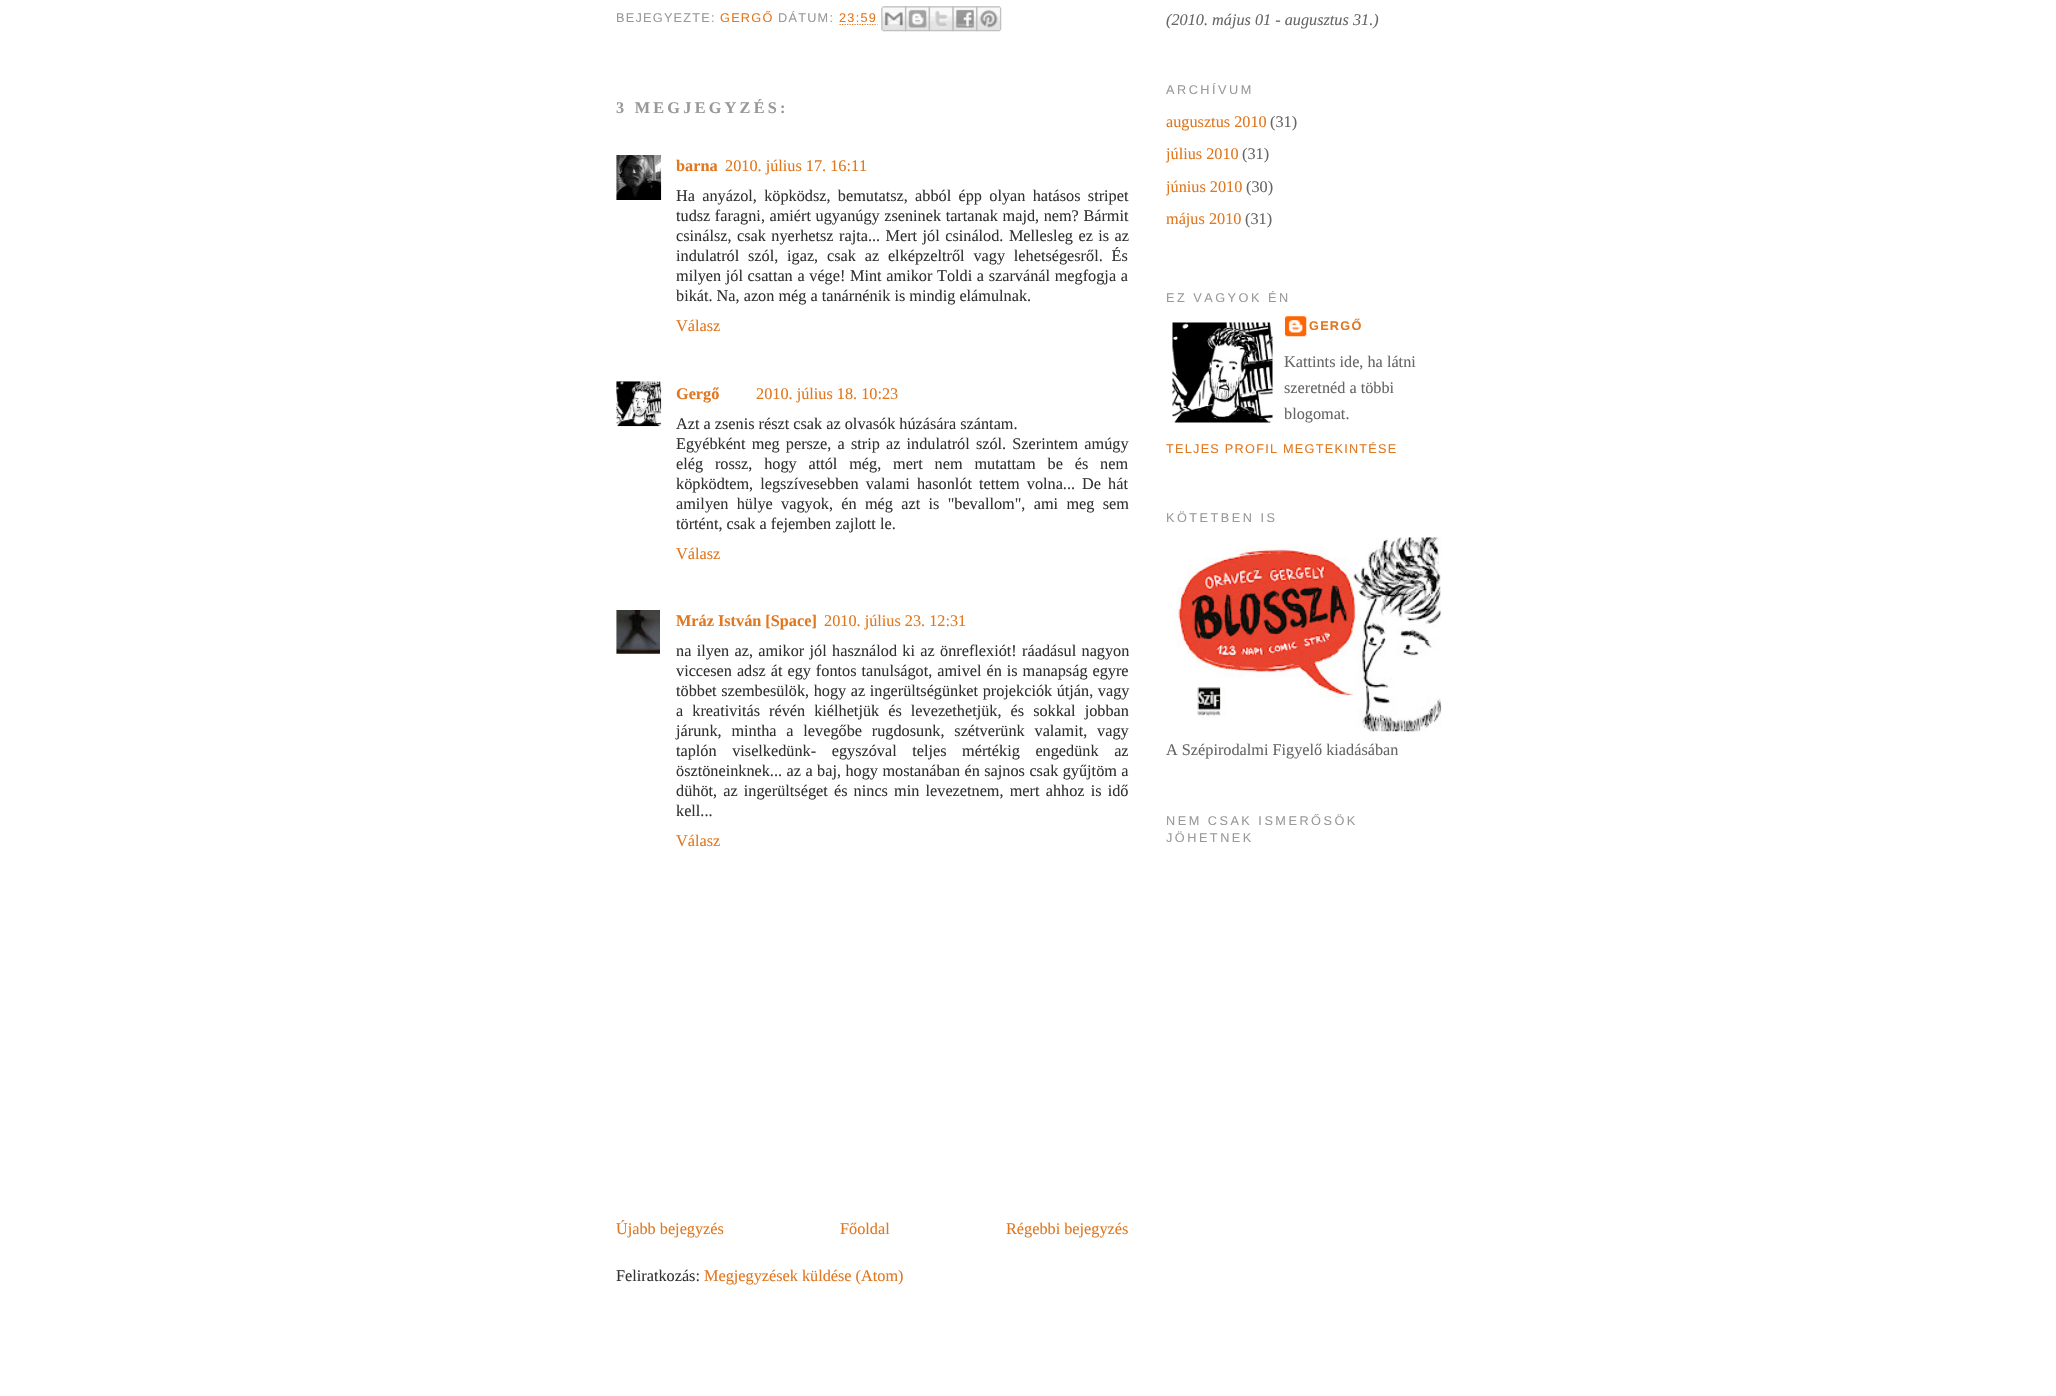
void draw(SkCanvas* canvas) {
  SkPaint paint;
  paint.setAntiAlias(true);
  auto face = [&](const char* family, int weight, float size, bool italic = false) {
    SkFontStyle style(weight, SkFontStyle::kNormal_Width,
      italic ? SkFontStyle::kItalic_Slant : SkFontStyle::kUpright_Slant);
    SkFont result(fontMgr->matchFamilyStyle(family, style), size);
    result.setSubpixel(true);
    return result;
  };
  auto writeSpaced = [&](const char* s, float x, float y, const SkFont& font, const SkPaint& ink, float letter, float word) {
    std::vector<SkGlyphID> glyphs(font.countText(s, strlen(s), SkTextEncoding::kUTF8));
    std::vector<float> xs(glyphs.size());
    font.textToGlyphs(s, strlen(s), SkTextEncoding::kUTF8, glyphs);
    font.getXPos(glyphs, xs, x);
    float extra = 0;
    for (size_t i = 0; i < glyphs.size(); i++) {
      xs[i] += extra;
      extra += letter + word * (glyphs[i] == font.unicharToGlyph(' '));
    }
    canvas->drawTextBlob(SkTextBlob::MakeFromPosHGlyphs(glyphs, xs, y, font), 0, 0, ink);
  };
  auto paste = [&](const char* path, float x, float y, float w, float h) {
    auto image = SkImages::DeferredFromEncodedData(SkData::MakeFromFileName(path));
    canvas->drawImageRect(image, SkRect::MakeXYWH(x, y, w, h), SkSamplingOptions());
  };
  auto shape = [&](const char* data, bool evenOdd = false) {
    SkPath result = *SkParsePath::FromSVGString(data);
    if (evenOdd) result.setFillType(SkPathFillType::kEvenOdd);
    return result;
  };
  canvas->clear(0xffffffff);
  paint.setStroke(true);
  paint.setStrokeWidth(1.2f);
  paint.setColor(0xffe1771e);
  paint.setPathEffect(SkDashPathEffect::Make({{1.25f, 1.25f}}, 0));
  canvas->drawPath(shape("M839.5 24.5H877.5"), paint);
  paint.setPathEffect(nullptr);
  paste("img/1.png", 881, 6, 26, 26);
  paste("img/2.png", 905, 6, 25, 26);
  paste("img/3.png", 928, 6, 26, 26);
  paste("img/4.png", 952, 6, 26, 26);
  paste("img/5.png", 976, 6, 26, 26);
  paste("img/6.png", 616, 155, 46, 45);
  paste("img/7.png", 616, 381, 46, 46);
  paste("img/8.png", 616, 610, 44, 44);
  paste("img/9.png", 1172, 322, 101, 101);
  paste("img/10.png", 1285, 316, 22, 21);
  paste("img/11.png", 1176, 537, 266, 195);
  auto f0 = face("Liberation Sans", 400, 12.7f);
  paint.setStroke(false);
  paint.setColor(0xff999999);
  writeSpaced("BEJEGYEZTE:", 616, 22, f0, paint, 1.25f, 0);
  paint.setColor(0xffe1771e);
  writeSpaced("GERGŐ", 720, 22, f0, paint, 1.25f, 0);
  paint.setColor(0xff999999);
  writeSpaced("DÁTUM:", 778, 22, f0, paint, 1.25f, 0);
  paint.setColor(0xffe1771e);
  writeSpaced("23:59", 839, 22, f0, paint, 1.25f, 0);
  auto f1 = face("Liberation Serif", 700, 16.25f);
  paint.setColor(0xff999999);
  writeSpaced("3 MEGJEGYZÉS:", 616, 113, f1, paint, 3.25f, 0);
  paint.setColor(0xffe1771e);
  canvas->drawString("barna", 676, 171, f1, paint);
  auto f2 = face("Liberation Serif", 400, 16.25f);
  canvas->drawString("2010. július 17. 16:11", 725, 171, f2, paint);
  paint.setColor(0xff333333);
  writeSpaced("Ha anyázol, köpködsz, bemutatsz, abból épp olyan hatásos stripet", 676, 201, f2, paint, 0, 3.25f);
  writeSpaced("tudsz faragni, amiért ugyanúgy zseninek tartanak majd, nem? Bármit", 676, 221, f2, paint, 0, 0.5f);
  writeSpaced("csinálsz, csak nyerhetsz rajta... Mert jól csinálod. Mellesleg ez is az", 676, 241, f2, paint, 0, 1.4f);
  writeSpaced("indulatról szól, igaz, csak az elképzeltről vagy lehetségesről. És", 676, 261, f2, paint, 0, 4.75f);
  writeSpaced("milyen jól csattan a vége! Mint amikor Toldi a szarvánál megfogja a", 676, 281, f2, paint, 0, 0.6f);
  canvas->drawString("bikát. Na, azon még a tanárnénik is mindig elámulnak.", 676, 301, f2, paint);
  paint.setColor(0xffe1771e);
  canvas->drawString("Válasz", 676, 331, f2, paint);
  canvas->drawString("Gergő", 676, 399, f1, paint);
  canvas->drawString("2010. július 18. 10:23", 756, 399, f2, paint);
  paint.setColor(0xff333333);
  canvas->drawString("Azt a zsenis részt csak az olvasók húzására szántam.", 676, 429, f2, paint);
  writeSpaced("Egyébként meg persze, a strip az indulatról szól. Szerintem amúgy", 676, 449, f2, paint, 0, 2.1f);
  writeSpaced("elég rossz, hogy attól még, mert nem mutattam be és nem", 676, 469, f2, paint, 0, 7.75f);
  writeSpaced("köpködtem, legszívesebben valami hasonlót tettem volna... De hát", 676, 489, f2, paint, 0, 3);
  writeSpaced("amilyen hülye vagyok, én még azt is \"bevallom\", ami meg sem", 676, 509, f2, paint, 0, 4.25f);
  canvas->drawString("történt, csak a fejemben zajlott le.", 676, 529, f2, paint);
  paint.setColor(0xffe1771e);
  canvas->drawString("Válasz", 676, 559, f2, paint);
  canvas->drawString("Mráz István [Space]", 676, 626, f1, paint);
  canvas->drawString("2010. július 23. 12:31", 824, 626, f2, paint);
  paint.setColor(0xff333333);
  writeSpaced("na ilyen az, amikor jól használod ki az önreflexiót! ráadásul nagyon", 676, 656, f2, paint, 0, 1.25f);
  writeSpaced("viccesen adsz át egy fontos tanulságot, amivel én is manapság egyre", 676, 676, f2, paint, 0, 0.9f);
  writeSpaced("többet szembesülök, hogy az ingerültségünket projekciók útján, vagy", 676, 696, f2, paint, 0, 0.5f);
  writeSpaced("a kreativitás révén kiélhetjük és levezethetjük, és sokkal jobban", 676, 716, f2, paint, 0, 5);
  writeSpaced("járunk, mintha a levegőbe rugdosunk, szétverünk valamit, vagy", 676, 736, f2, paint, 0, 5.75f);
  writeSpaced("taplón viselkedünk- egyszóval teljes mértékig engedünk az", 676, 756, f2, paint, 0, 11.5f);
  writeSpaced("ösztöneinknek... az a baj, hogy mostanában én sajnos csak gyűjtöm a", 676, 776, f2, paint, 0, 0.4f);
  writeSpaced("dühöt, az ingerültséget és nincs min levezetnem, mert ahhoz is idő", 676, 796, f2, paint, 0, 2.1f);
  canvas->drawString("kell...", 676, 816, f2, paint);
  paint.setColor(0xffe1771e);
  {
    const struct { const char* s; float x, y; } items[] = {
      {"Válasz", 676, 846},
      {"Újabb bejegyzés", 616, 1234},
      {"Főoldal", 840, 1234},
      {"Régebbi bejegyzés", 1006, 1234},
    };
    for (auto [s, x, y] : items) {
      canvas->drawString(s, x, y, f2, paint);
    }
  }
  paint.setColor(0xff333333);
  canvas->drawString("Feliratkozás:", 616, 1281, f2, paint);
  paint.setColor(0xffe1771e);
  canvas->drawString("Megjegyzések küldése (Atom)", 704, 1281, f2, paint);
  auto f3 = face("Liberation Serif", 400, 16.25f, true);
  paint.setColor(0xff666666);
  canvas->drawString("(2010. május 01 - augusztus 31.)", 1166, 25, f3, paint);
  paint.setColor(0xff999999);
  writeSpaced("ARCHÍVUM", 1166, 94, f0, paint, 2.5f, 0);
  paint.setColor(0xffe1771e);
  canvas->drawString("augusztus 2010", 1166, 127, f2, paint);
  paint.setColor(0xff666666);
  canvas->drawString("(31)", 1270, 127, f2, paint);
  canvas->save();
  canvas->clipRect(SkRect::MakeXYWH(1166, 0, 275, 1101));
  paint.setColor(0xffe1771e);
  canvas->drawString("július 2010", 1166, 159, f2, paint);
  canvas->restore();
  paint.setColor(0xff666666);
  canvas->drawString("(31)", 1242, 159, f2, paint);
  canvas->save();
  canvas->clipRect(SkRect::MakeXYWH(1166, 0, 275, 1101));
  paint.setColor(0xffe1771e);
  canvas->drawString("június 2010", 1166, 192, f2, paint);
  canvas->restore();
  paint.setColor(0xff666666);
  canvas->drawString("(30)", 1246, 192, f2, paint);
  paint.setColor(0xffe1771e);
  canvas->drawString("május 2010", 1166, 224, f2, paint);
  paint.setColor(0xff666666);
  canvas->drawString("(31)", 1245, 224, f2, paint);
  paint.setColor(0xff999999);
  writeSpaced("EZ VAGYOK ÉN", 1166, 302, f0, paint, 2.5f, 0);
  auto f4 = face("Liberation Sans", 700, 12.7f);
  paint.setColor(0xffe1771e);
  writeSpaced("GERGŐ", 1309, 330, f4, paint, 1.25f, 0);
  paint.setColor(0xff666666);
  {
    const struct { const char* s; float x, y; } items[] = {
      {"Kattints ide, ha látni", 1284, 367},
      {"szeretnéd a többi", 1284, 393},
      {"blogomat.", 1284, 419},
    };
    for (auto [s, x, y] : items) {
      canvas->drawString(s, x, y, f2, paint);
    }
  }
  paint.setColor(0xffe1771e);
  writeSpaced("TELJES PROFIL MEGTEKINTÉSE", 1166, 453, f0, paint, 1.25f, 0);
  paint.setColor(0xff999999);
  writeSpaced("KÖTETBEN IS", 1166, 522, f0, paint, 2.5f, 0);
  paint.setColor(0xff666666);
  canvas->drawString("A Szépirodalmi Figyelő kiadásában", 1166, 755, f2, paint);
  paint.setColor(0xff999999);
  writeSpaced("NEM CSAK ISMERŐSÖK", 1166, 825, f0, paint, 2.5f, 0);
  writeSpaced("JÖHETNEK", 1166, 842, f0, paint, 2.5f, 0);
}
